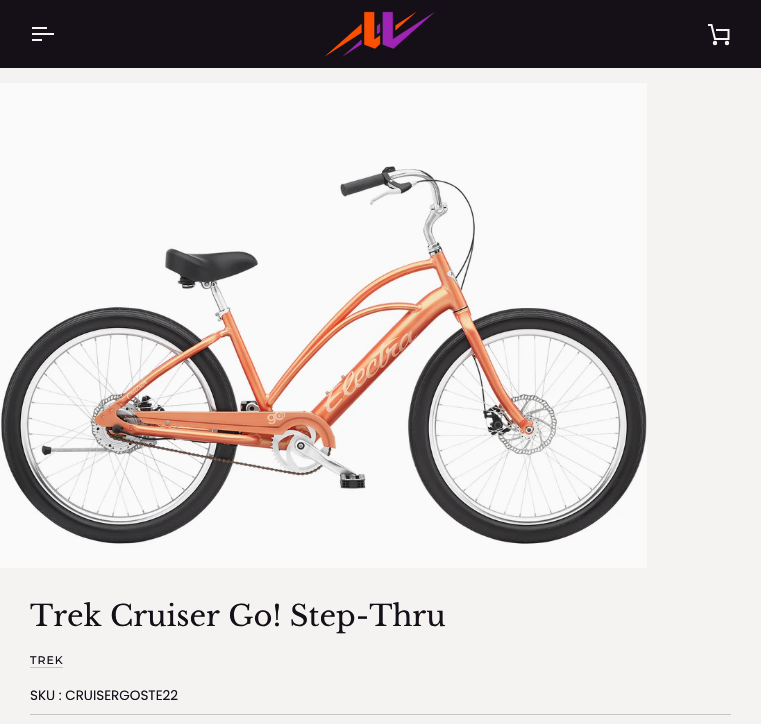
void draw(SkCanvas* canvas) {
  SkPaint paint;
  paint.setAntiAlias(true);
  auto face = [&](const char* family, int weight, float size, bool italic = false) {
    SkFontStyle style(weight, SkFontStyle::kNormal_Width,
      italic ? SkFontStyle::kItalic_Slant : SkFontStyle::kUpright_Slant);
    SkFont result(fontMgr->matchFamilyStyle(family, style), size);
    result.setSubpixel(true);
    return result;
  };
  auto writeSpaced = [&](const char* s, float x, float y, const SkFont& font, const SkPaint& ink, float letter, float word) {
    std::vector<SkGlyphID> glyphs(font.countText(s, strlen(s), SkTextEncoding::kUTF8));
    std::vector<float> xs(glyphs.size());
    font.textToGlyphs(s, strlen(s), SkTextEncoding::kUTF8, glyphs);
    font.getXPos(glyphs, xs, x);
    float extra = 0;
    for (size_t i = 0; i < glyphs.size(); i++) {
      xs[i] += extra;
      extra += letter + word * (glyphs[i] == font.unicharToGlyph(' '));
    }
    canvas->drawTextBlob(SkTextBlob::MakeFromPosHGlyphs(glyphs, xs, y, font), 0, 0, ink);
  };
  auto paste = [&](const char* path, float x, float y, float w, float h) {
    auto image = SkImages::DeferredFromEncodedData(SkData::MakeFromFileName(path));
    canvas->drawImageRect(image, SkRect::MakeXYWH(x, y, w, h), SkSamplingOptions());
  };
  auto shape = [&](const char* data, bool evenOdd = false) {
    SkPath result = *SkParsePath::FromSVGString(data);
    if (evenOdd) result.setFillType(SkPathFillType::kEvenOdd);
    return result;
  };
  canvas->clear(0xfff4f3f2);
  paint.setColor(0xff150f17);
  canvas->drawRect(SkRect::MakeXYWH(0, 0, 761, 68), paint);
  paint.setStroke(true);
  paint.setStrokeWidth(2);
  paint.setStrokeCap(SkPaint::kSquare_Cap);
  paint.setColor(0xfff7f5f4);
  canvas->drawPath(shape("M46 28H33M53 34H33M41 40H33"), paint);
  paste("img/1.png", 324, 11, 111, 46);
  paint.setStrokeCap(SkPaint::kButt_Cap);
  canvas->drawPath(shape("M708 25H711.5L715 39H728.5V30H716"), paint);
  canvas->drawCircle(715, 43, 1.2f, paint);
  canvas->drawCircle(727, 43, 1.2f, paint);
  paste("img/2.png", 0, 83, 647, 485);
  paint.setStroke(false);
  paint.setColor(0xffc7c5c6);
  canvas->drawRect(SkRect::MakeXYWH(30, 667, 33, 1), paint);
  canvas->drawRect(SkRect::MakeXYWH(30, 714, 701, 1), paint);
  auto f0 = face("Libre Baskerville", 400, 29);
  paint.setColor(0xff150f17);
  canvas->drawString("Trek Cruiser Go! Step-Thru", 30, 626, f0, paint);
  auto f1 = face("Montserrat", 500, 11);
  writeSpaced("TREK", 30, 664, f1, paint, 1, 0);
  auto f2 = face("Poppins", 400, 13.5f);
  canvas->drawString("SKU : CRUISERGOSTE22", 30, 700, f2, paint);
}
